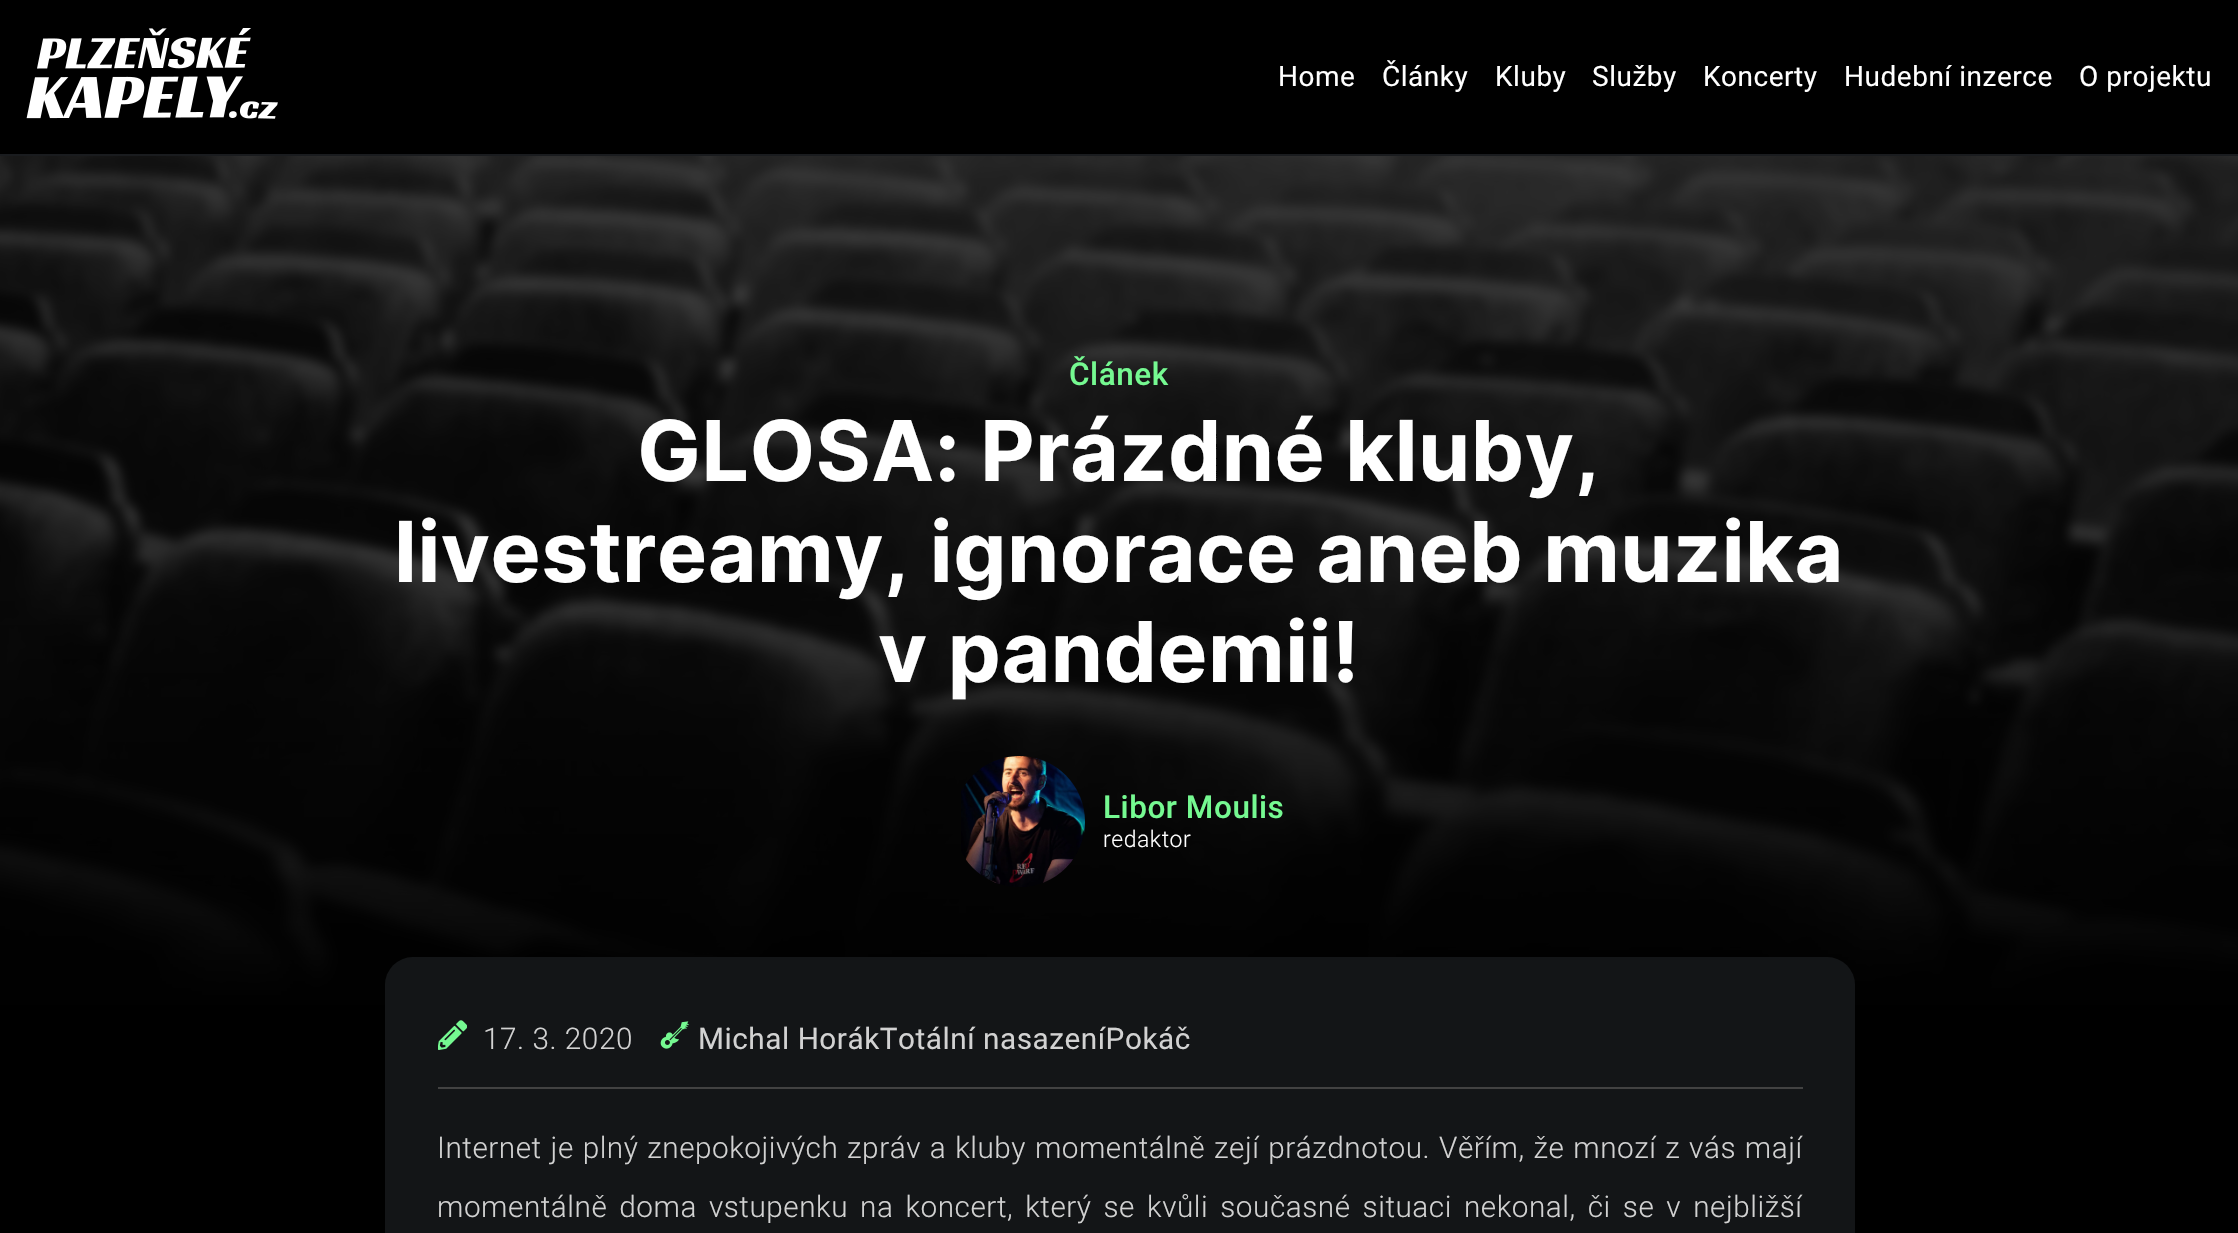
void draw(SkCanvas* canvas) {
  SkPaint paint;
  paint.setAntiAlias(true);
  auto face = [&](const char* family, int weight, float size, bool italic = false) {
    SkFontStyle style(weight, SkFontStyle::kNormal_Width,
      italic ? SkFontStyle::kItalic_Slant : SkFontStyle::kUpright_Slant);
    SkFont result(fontMgr->matchFamilyStyle(family, style), size);
    result.setSubpixel(true);
    return result;
  };
  auto writeSpaced = [&](const char* s, float x, float y, const SkFont& font, const SkPaint& ink, float letter, float word) {
    std::vector<SkGlyphID> glyphs(font.countText(s, strlen(s), SkTextEncoding::kUTF8));
    std::vector<float> xs(glyphs.size());
    font.textToGlyphs(s, strlen(s), SkTextEncoding::kUTF8, glyphs);
    font.getXPos(glyphs, xs, x);
    float extra = 0;
    for (size_t i = 0; i < glyphs.size(); i++) {
      xs[i] += extra;
      extra += letter + word * (glyphs[i] == font.unicharToGlyph(' '));
    }
    canvas->drawTextBlob(SkTextBlob::MakeFromPosHGlyphs(glyphs, xs, y, font), 0, 0, ink);
  };
  auto paste = [&](const char* path, float x, float y, float w, float h) {
    auto image = SkImages::DeferredFromEncodedData(SkData::MakeFromFileName(path));
    canvas->drawImageRect(image, SkRect::MakeXYWH(x, y, w, h), SkSamplingOptions());
  };
  canvas->clear(0xff000000);
  paint.setColor(0xff1a1c1f);
  canvas->drawRect(SkRect::MakeXYWH(0, 154, 2238, 2), paint);
  paste("img/1.png", 26, 28, 252, 91);
  paste("img/2.png", 0, 156, 2238, 849);
  {
    const SkColor colors[] = {0x80000000, 0xff000000};
    const float stops[] = {0.57f, 1};
    const SkPoint ends[] = {{1119, 0}, {1119, 1010}};
    paint.setShader(SkGradientShader::MakeLinear(ends, colors, stops, 2, SkTileMode::kClamp));
    paint.setAlpha(255);
  }
  canvas->drawRect(SkRect::MakeXYWH(0, 156, 2238, 849), paint);
  paste("img/3.png", 961, 756, 124, 131);
  paint.setShader(nullptr);
  paint.setColor(0xff131517);
  canvas->drawRoundRect(SkRect::MakeXYWH(385, 957, 1470, 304), 28, 28, paint);
  paint.setColor(0xff424242);
  canvas->drawRect(SkRect::MakeXYWH(438, 1087, 1365, 2), paint);
  paste("img/4.png", 438, 1020, 29, 30);
  paste("img/5.png", 660, 1021, 29, 28);
  auto f0 = face("Roboto", 400, 28);
  paint.setColor(0xffffffff);
  {
    const struct { const char* s; float x, y; } items[] = {
      {"Home", 1278, 86},
      {"Články", 1382, 86},
      {"Kluby", 1495, 86},
      {"Služby", 1592, 86},
      {"Koncerty", 1703, 86},
      {"Hudební inzerce", 1844, 86},
      {"O projektu", 2079, 86},
    };
    for (auto [s, x, y] : items) {
      writeSpaced(s, x, y, f0, paint, 0.53f, 0);
    }
  }
  auto f1 = face("Roboto", 500, 31.5f);
  paint.setColor(0xff75f991);
  writeSpaced("Článek", 1069, 385, f1, paint, 0.53f, 0);
  auto f2 = face("Inter", 700, 84);
  paint.setColor(0xffffffff);
  {
    const struct { const char* s; float x, y; } items[] = {
      {"GLOSA: Prázdné kluby,", 637, 481},
      {"livestreamy, ignorace aneb muzika", 394, 582},
      {"v pandemii!", 878, 682},
    };
    for (auto [s, x, y] : items) {
      writeSpaced(s, x, y, f2, paint, 0.53f, 0);
    }
  }
  paint.setColor(0xff75f991);
  writeSpaced("Libor Moulis", 1103, 818, f1, paint, 0.53f, 0);
  auto f3 = face("Roboto", 300, 23);
  paint.setColor(0xffffffff);
  writeSpaced("redaktor", 1103, 847, f3, paint, 0.53f, 0);
  auto f4 = face("Roboto", 300, 29.75f);
  paint.setColor(0xffd2d2d2);
  writeSpaced("17. 3. 2020", 483, 1049, f4, paint, 0.53f, 0);
  auto f5 = face("Roboto", 400, 29.75f);
  writeSpaced("Michal HorákTotální nasazeníPokáč", 698, 1049, f5, paint, 0.53f, 0);
  writeSpaced("Internet je plný znepokojivých zpráv a kluby momentálně zejí prázdnotou. Věřím, že mnozí z vás mají", 437, 1158, f4, paint, 0.53f, 1.1f);
  writeSpaced("momentálně doma vstupenku na koncert, který se kvůli současné situaci nekonal, či se v nejbližší", 437, 1217, f4, paint, 0.53f, 4.25f);
}
